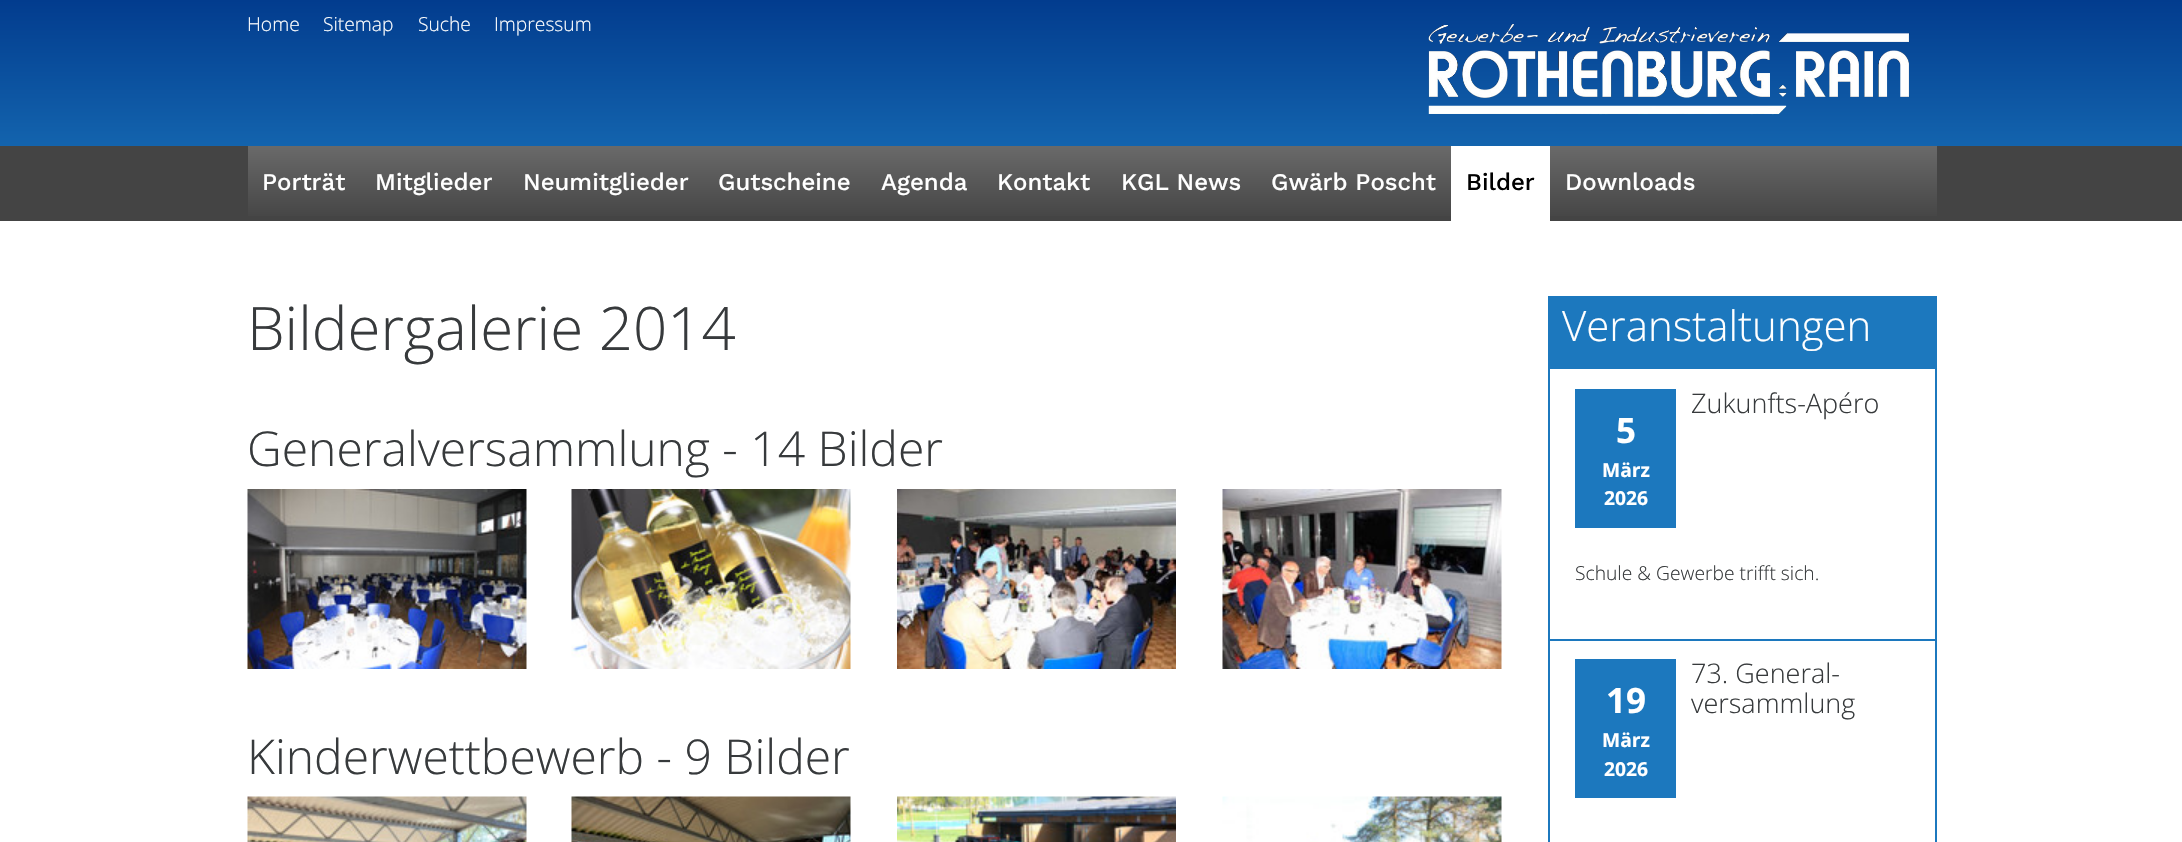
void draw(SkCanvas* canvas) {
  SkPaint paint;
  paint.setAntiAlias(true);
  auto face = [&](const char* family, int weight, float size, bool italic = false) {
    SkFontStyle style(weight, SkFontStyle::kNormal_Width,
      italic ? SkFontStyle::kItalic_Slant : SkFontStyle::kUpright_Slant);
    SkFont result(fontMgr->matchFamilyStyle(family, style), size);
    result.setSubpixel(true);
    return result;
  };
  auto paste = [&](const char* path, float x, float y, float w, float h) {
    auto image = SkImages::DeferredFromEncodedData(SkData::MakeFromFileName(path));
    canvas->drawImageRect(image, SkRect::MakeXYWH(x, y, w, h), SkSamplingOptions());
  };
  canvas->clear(0xffffffff);
  {
    const SkColor colors[] = {0xff023c8e, 0xff1c78be};
    const float stops[] = {0, 1};
    const SkPoint ends[] = {{1091, 0}, {1091, 221}};
    paint.setShader(SkGradientShader::MakeLinear(ends, colors, stops, 2, SkTileMode::kClamp));
    paint.setAlpha(255);
  }
  canvas->drawRect(SkRect::MakeXYWH(0, 0, 2182, 146), paint);
  paste("img/1.png", 1428, 24, 482, 91);
  paint.setShader(nullptr);
  paint.setColor(0xff444444);
  canvas->drawRect(SkRect::MakeXYWH(0, 146, 2182, 75), paint);
  {
    const SkColor colors[] = {0xff6a6a6a, 0xff444444};
    const float stops[] = {0, 1};
    const SkPoint ends[] = {{1092, 145}, {1092, 221}};
    paint.setShader(SkGradientShader::MakeLinear(ends, colors, stops, 2, SkTileMode::kClamp));
    paint.setAlpha(255);
  }
  canvas->drawRect(SkRect::MakeXYWH(248, 146, 1689, 70), paint);
  paint.setShader(nullptr);
  paint.setColor(0xffffffff);
  canvas->drawRect(SkRect::MakeXYWH(1451, 146, 99, 75), paint);
  paste("img/2.png", 247, 489, 280, 180);
  paste("img/3.png", 571, 489, 280, 180);
  paste("img/4.png", 897, 489, 279, 180);
  paste("img/5.png", 1222, 489, 280, 180);
  paste("img/6.png", 247, 796, 280, 46);
  paste("img/7.png", 571, 796, 280, 46);
  paste("img/8.png", 897, 796, 279, 46);
  paste("img/9.png", 1222, 796, 280, 46);
  {
    const struct { float x, y, w, h; SkColor color; } items[] = {
      {1548, 296, 389, 73, 0xff1c78be},
      {1935, 368, 2, 474, 0xff1c78be},
      {1548, 368, 2, 474, 0xff1c78be},
      {1550, 639, 385, 2, 0xff1c78be},
      {1575, 389, 101, 139, 0xff1c78be},
      {1575, 659, 101, 139, 0xff1c78be},
    };
    for (auto [x, y, w, h, color] : items) {
      paint.setColor(color);
      canvas->drawRect(SkRect::MakeXYWH(x, y, w, h), paint);
    }
  }
  auto f0 = face("Open Sans", 300, 19.25f);
  paint.setColor(0xffffffff);
  {
    const struct { const char* s; float x, y; } items[] = {
      {"Home", 247, 31},
      {"Sitemap", 323, 31},
      {"Suche", 418, 31},
      {"Impressum", 494, 31},
    };
    for (auto [s, x, y] : items) {
      canvas->drawString(s, x, y, f0, paint);
    }
  }
  auto f1 = face("Work Sans", 500, 24);
  {
    const struct { const char* s; float x, y; } items[] = {
      {"Porträt", 262, 190},
      {"Mitglieder", 375, 190},
      {"Neumitglieder", 523, 190},
      {"Gutscheine", 718, 190},
      {"Agenda", 881, 190},
      {"Kontakt", 997, 190},
      {"KGL News", 1121, 190},
      {"Gwärb Poscht", 1271, 190},
    };
    for (auto [s, x, y] : items) {
      canvas->drawString(s, x, y, f1, paint);
    }
  }
  paint.setColor(0xff000000);
  canvas->drawString("Bilder", 1466, 190, f1, paint);
  paint.setColor(0xffffffff);
  canvas->drawString("Downloads", 1565, 190, f1, paint);
  auto f2 = face("Open Sans", 300, 60);
  paint.setColor(0xff373a3c);
  canvas->drawString("Bildergalerie 2014", 247, 350, f2, paint);
  auto f3 = face("Open Sans", 300, 48);
  canvas->drawString("Generalversammlung - 14 Bilder", 247, 466, f3, paint);
  canvas->drawString("Kinderwettbewerb - 9 Bilder", 247, 774, f3, paint);
  auto f4 = face("Open Sans", 300, 42);
  paint.setColor(0xffffffff);
  canvas->drawString("Veranstaltungen", 1562, 341, f4, paint);
  auto f5 = face("Open Sans", 300, 27);
  paint.setColor(0xff373a3c);
  canvas->drawString("Zukunfts-Apéro", 1691, 413, f5, paint);
  auto f6 = face("Open Sans", 700, 35);
  paint.setColor(0xffffffff);
  canvas->drawString("5", 1616, 443, f6, paint);
  auto f7 = face("Open Sans", 700, 19.25f);
  canvas->drawString("März", 1602, 477, f7, paint);
  canvas->drawString("2026", 1604, 505, f7, paint);
  paint.setColor(0xff373a3c);
  canvas->drawString("Schule & Gewerbe trifft sich.", 1575, 580, f0, paint);
  paint.setColor(0xffffffff);
  canvas->drawString("19", 1606, 713, f6, paint);
  canvas->drawString("März", 1602, 747, f7, paint);
  canvas->drawString("2026", 1604, 776, f7, paint);
  paint.setColor(0xff373a3c);
  canvas->drawString("73. General-", 1691, 683, f5, paint);
  canvas->drawString("versammlung", 1691, 713, f5, paint);
}
